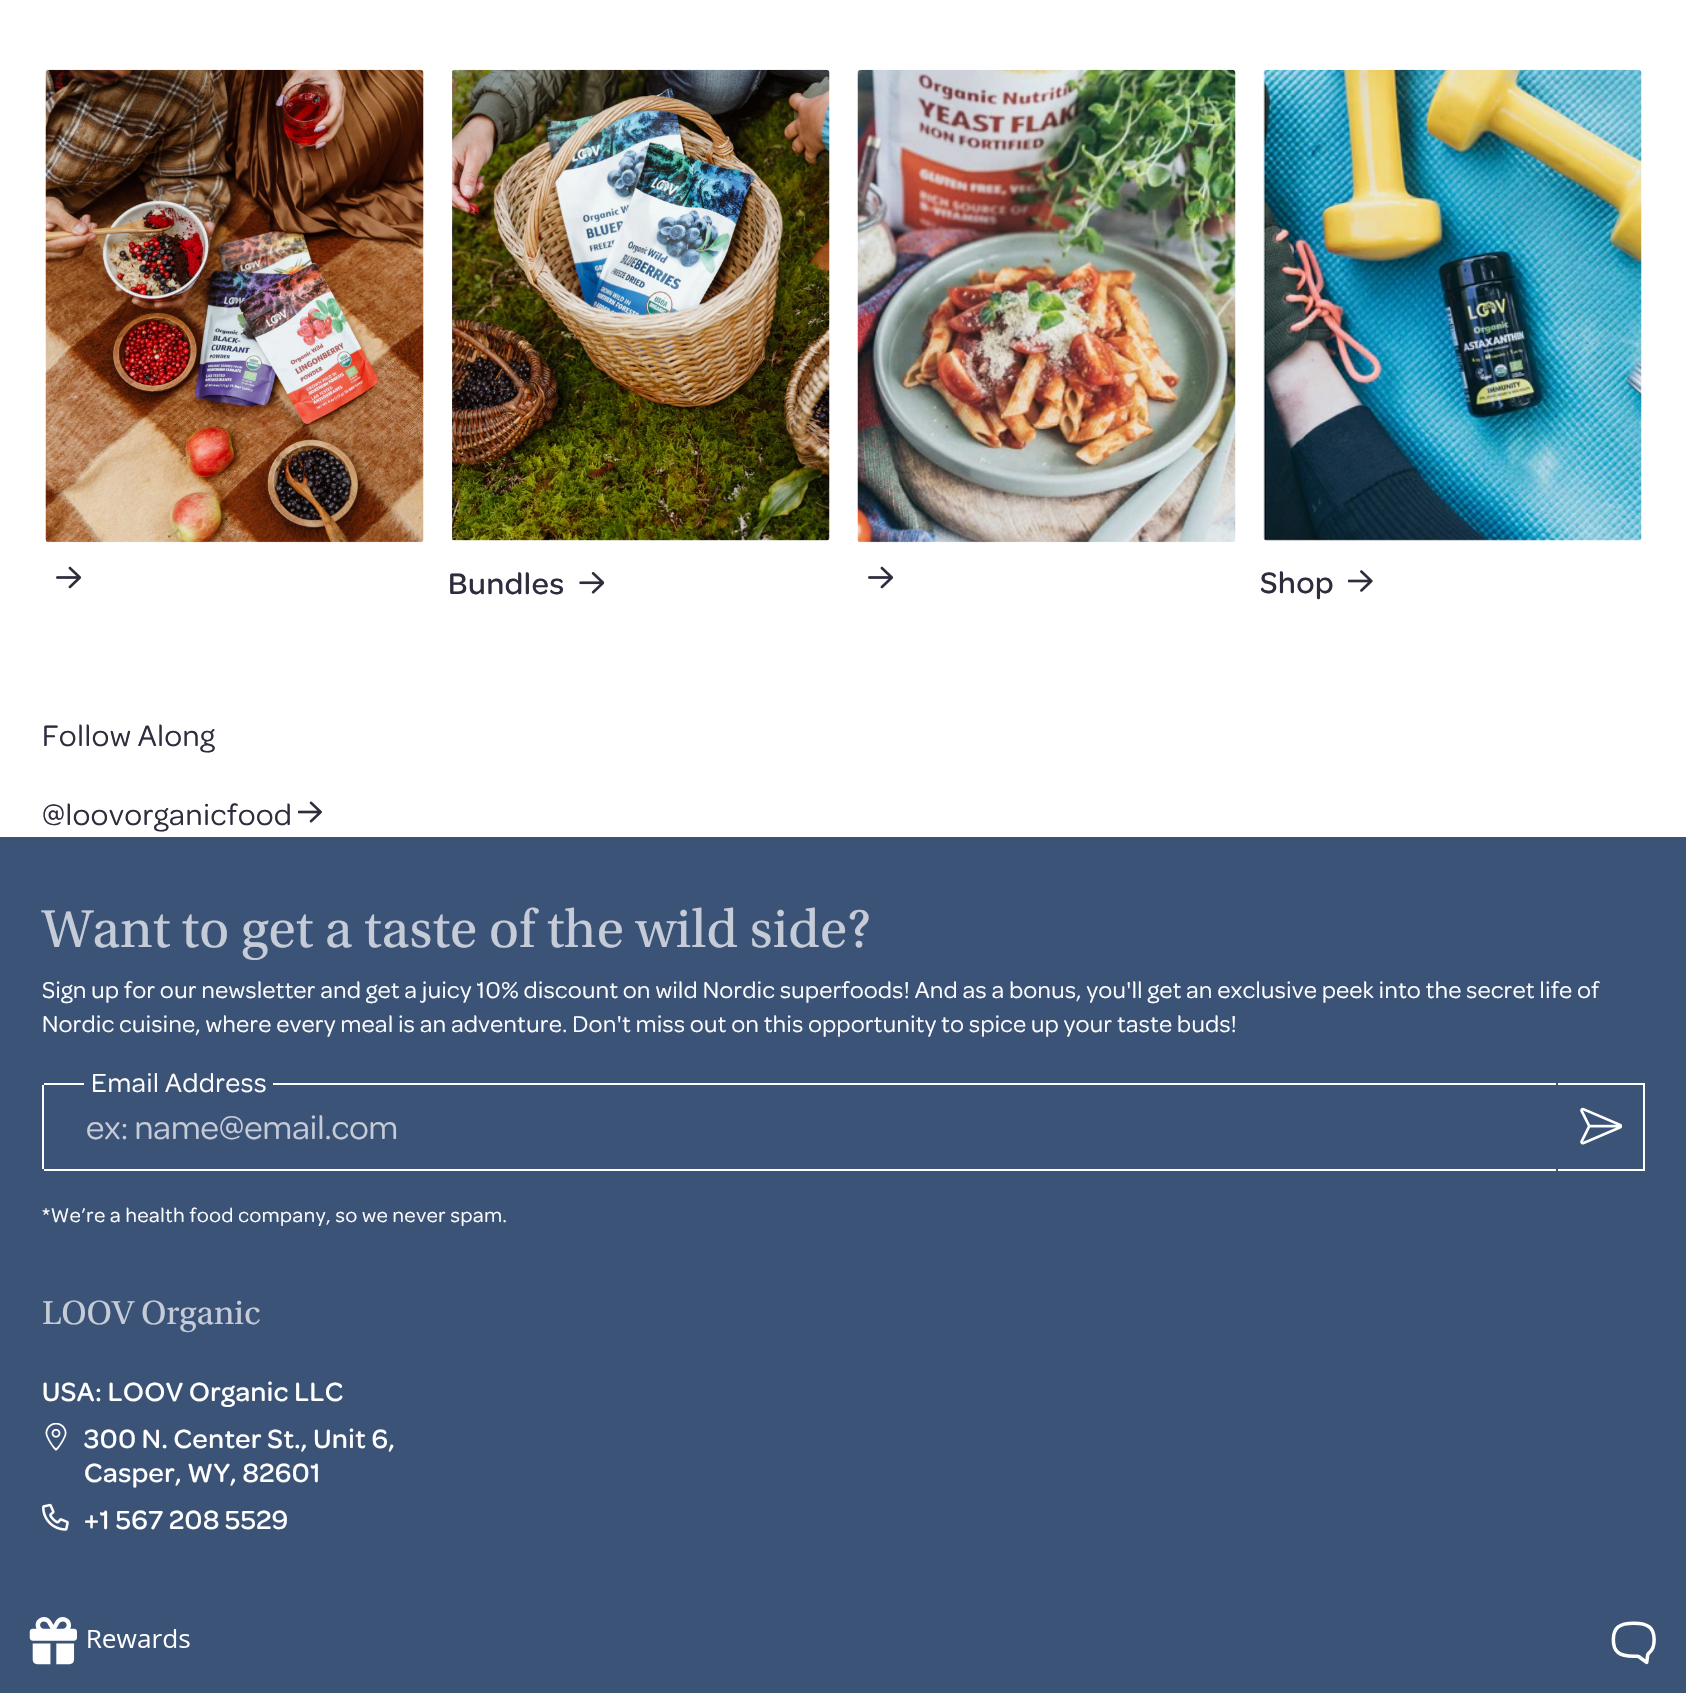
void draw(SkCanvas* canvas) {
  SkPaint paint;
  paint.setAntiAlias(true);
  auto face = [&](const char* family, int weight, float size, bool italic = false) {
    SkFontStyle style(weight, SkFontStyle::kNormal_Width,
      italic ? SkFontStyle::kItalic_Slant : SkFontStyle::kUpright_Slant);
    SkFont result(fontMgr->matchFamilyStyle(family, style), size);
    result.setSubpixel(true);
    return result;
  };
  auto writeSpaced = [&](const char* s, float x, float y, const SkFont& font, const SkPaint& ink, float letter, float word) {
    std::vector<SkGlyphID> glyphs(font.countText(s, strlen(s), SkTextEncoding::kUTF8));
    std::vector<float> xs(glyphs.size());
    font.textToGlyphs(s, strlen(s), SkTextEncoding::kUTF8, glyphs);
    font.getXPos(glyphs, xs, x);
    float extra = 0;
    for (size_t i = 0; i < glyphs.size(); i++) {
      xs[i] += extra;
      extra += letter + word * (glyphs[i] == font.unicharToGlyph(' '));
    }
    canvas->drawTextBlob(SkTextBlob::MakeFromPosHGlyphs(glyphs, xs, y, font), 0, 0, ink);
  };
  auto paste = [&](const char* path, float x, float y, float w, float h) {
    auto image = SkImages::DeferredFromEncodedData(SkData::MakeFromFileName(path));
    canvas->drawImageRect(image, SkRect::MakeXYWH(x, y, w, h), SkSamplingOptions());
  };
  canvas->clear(0xffffffff);
  paste("img/1.png", 45, 69, 379, 474);
  paste("img/2.png", 56, 566, 25, 23);
  paste("img/3.png", 451, 69, 379, 472);
  paste("img/4.png", 579, 572, 25, 22);
  paste("img/5.png", 857, 69, 379, 474);
  paste("img/2.png", 868, 566, 25, 23);
  paste("img/6.png", 1263, 69, 379, 472);
  paste("img/7.png", 1348, 570, 25, 22);
  paste("img/8.png", 298, 801, 24, 22);
  {
    const struct { float x, y, w, h; SkColor color; } items[] = {
      {0, 837, 1686, 856, 0xff3c5378},
      {44, 1083, 1512, 2, 0xffffffff},
      {84, 1083, 189, 2, 0xff3c5378},
      {1558, 1083, 87, 2, 0xffffffff},
      {1643, 1083, 2, 88, 0xffffffff},
      {1558, 1169, 87, 2, 0xffffffff},
    };
    for (auto [x, y, w, h, color] : items) {
      paint.setColor(color);
      canvas->drawRect(SkRect::MakeXYWH(x, y, w, h), paint);
    }
  }
  paste("img/9.png", 1580, 1107, 42, 38);
  canvas->drawRect(SkRect::MakeXYWH(44, 1169, 1512, 2), paint);
  canvas->drawRect(SkRect::MakeXYWH(42, 1085, 2, 84), paint);
  paste("img/10.png", 45, 1423, 22, 28);
  paste("img/11.png", 42, 1503, 27, 28);
  paste("img/12.png", 29, 1617, 161, 48);
  paste("img/13.png", 1611, 1621, 45, 44);
  auto f0 = face("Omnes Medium", 500, 31.5f);
  paint.setColor(0xff302b3d);
  writeSpaced("Bundles", 448, 594, f0, paint, 0.65f, 0);
  writeSpaced("Shop", 1260, 593, f0, paint, 0.65f, 0);
  auto f1 = face("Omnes", 400, 31.5f);
  writeSpaced("Follow Along", 42, 746, f1, paint, 0.65f, 0);
  writeSpaced("@loovorganicfood", 42, 825, f1, paint, 0.65f, 0);
  auto f2 = face("Utopia", 400, 56);
  paint.setColor(0xffc5cbd7);
  canvas->drawString("Want to get a taste of the wild side?", 42, 947, f2, paint);
  auto f3 = face("Omnes", 400, 24.5f);
  paint.setColor(0xffffffff);
  writeSpaced("Sign up for our newsletter and get a juicy 10% discount on wild Nordic superfoods! And as a bonus, you'll get an exclusive peek into the secret life of", 42, 998, f3, paint, 0.49f, 0);
  writeSpaced("Nordic cuisine, where every meal is an adventure. Don't miss out on this opportunity to spice up your taste buds!", 42, 1032, f3, paint, 0.49f, 0);
  auto f4 = face("Omnes", 400, 28);
  writeSpaced("Email Address", 91, 1092, f4, paint, 0.65f, 0);
  auto f5 = face("Omnes", 400, 35);
  paint.setColor(0xffc5cbd7);
  canvas->drawString("ex: name@email.com", 86, 1139, f5, paint);
  auto f6 = face("Omnes", 400, 21);
  paint.setColor(0xffffffff);
  writeSpaced("*We’re a health food company, so we never spam.", 42, 1222, f6, paint, 0.65f, 0);
  auto f7 = face("Utopia", 400, 35);
  paint.setColor(0xffc5cbd7);
  canvas->drawString("LOOV Organic", 42, 1324, f7, paint);
  auto f8 = face("Omnes Medium", 500, 28);
  paint.setColor(0xffffffff);
  {
    const struct { const char* s; float x, y; } items[] = {
      {"USA: LOOV Organic LLC", 42, 1401},
      {"300 N. Center St., Unit 6,", 84, 1448},
      {"Casper, WY, 82601", 84, 1482},
      {"+1 567 208 5529", 84, 1529},
    };
    for (auto [s, x, y] : items) {
      writeSpaced(s, x, y, f8, paint, 0.55f, 0);
    }
  }
}
